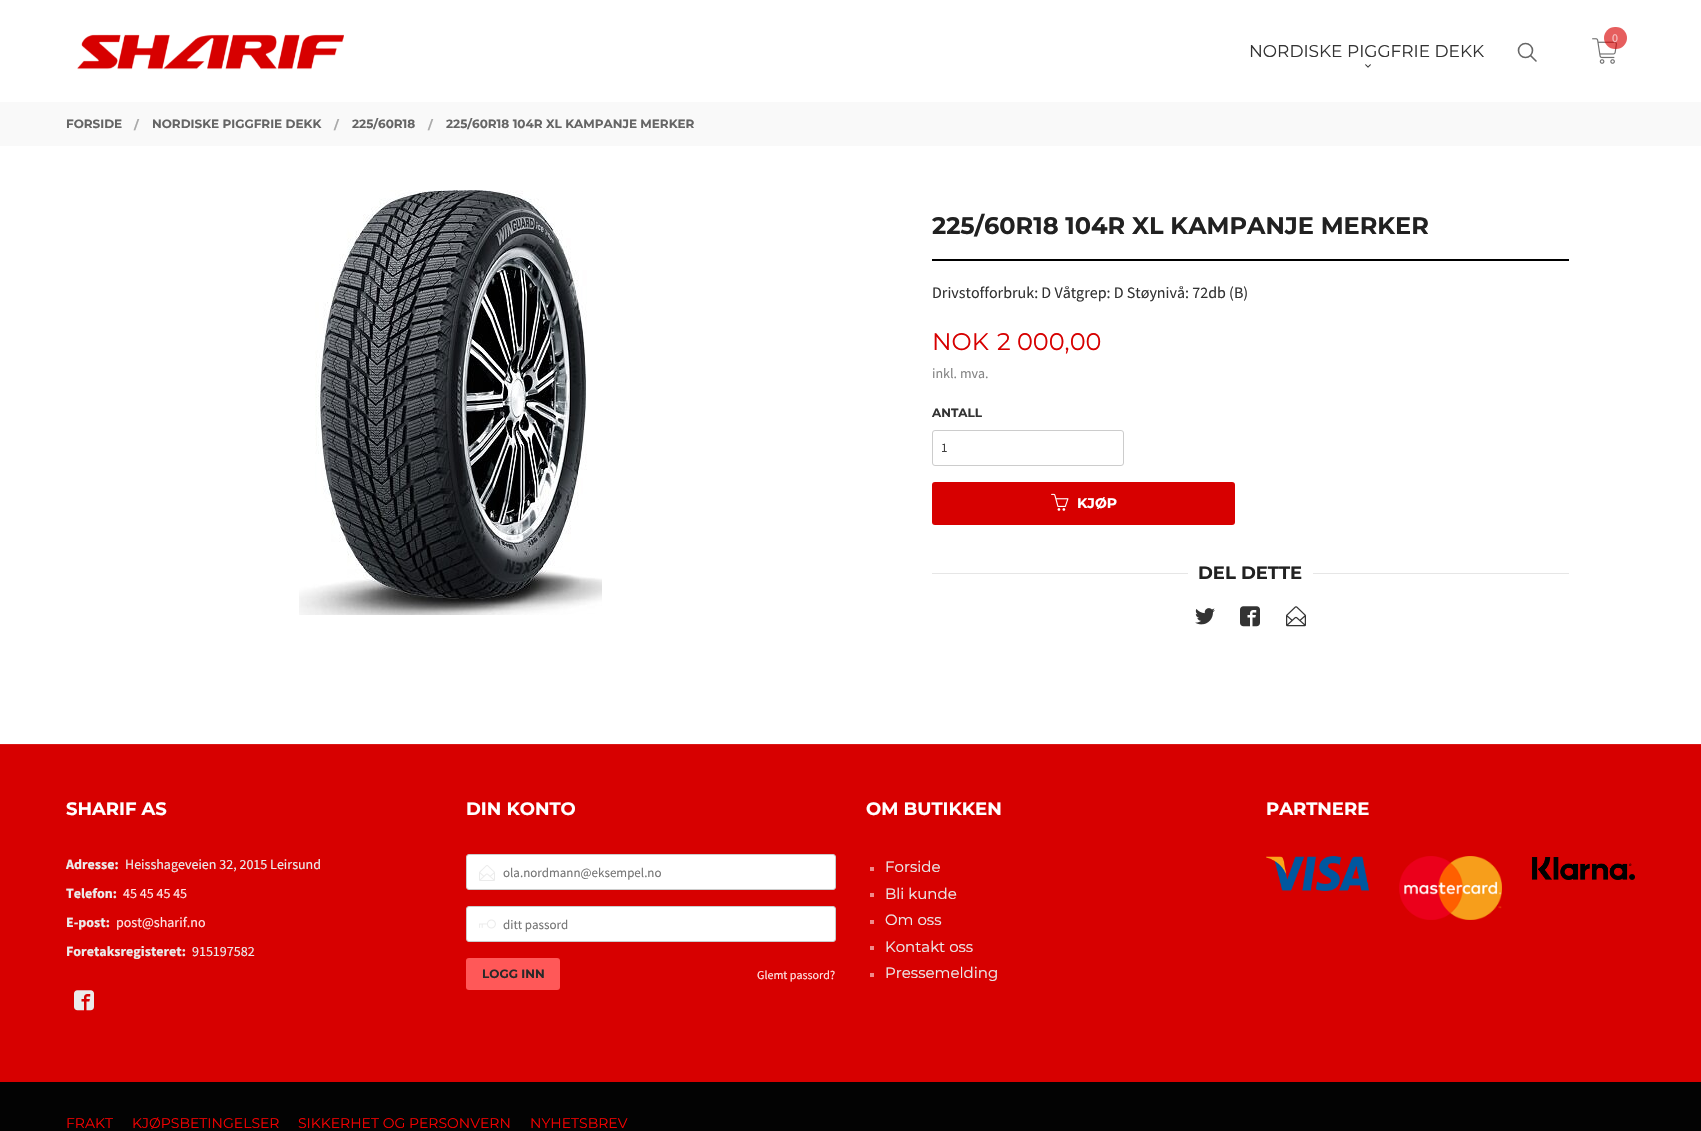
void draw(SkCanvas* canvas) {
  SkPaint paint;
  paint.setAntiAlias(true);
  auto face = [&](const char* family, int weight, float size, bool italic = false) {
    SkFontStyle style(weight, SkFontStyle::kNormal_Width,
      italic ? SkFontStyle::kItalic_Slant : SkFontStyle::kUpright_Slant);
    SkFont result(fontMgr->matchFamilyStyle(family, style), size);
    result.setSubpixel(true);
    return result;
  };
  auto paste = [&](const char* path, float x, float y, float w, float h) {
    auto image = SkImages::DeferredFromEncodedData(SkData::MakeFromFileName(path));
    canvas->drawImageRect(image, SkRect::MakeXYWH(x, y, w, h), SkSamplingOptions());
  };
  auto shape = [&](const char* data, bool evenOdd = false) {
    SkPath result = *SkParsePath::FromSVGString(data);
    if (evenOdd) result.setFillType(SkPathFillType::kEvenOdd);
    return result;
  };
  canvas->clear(0xfff9f9f9);
  paint.setColor(0xffffffff);
  canvas->drawRect(SkRect::MakeXYWH(0, 0, 1701, 102), paint);
  paste("img/1.png", 1592, 38, 25, 26);
  paint.setColor(0xa1d70000);
  canvas->drawRoundRect(SkRect::MakeXYWH(1604, 27, 23, 22), 11, 11, paint);
  paste("img/2.png", 77, 34, 267, 36);
  paste("img/3.png", 1365, 64, 6, 4);
  paint.setStroke(true);
  paint.setStrokeWidth(1.6f);
  paint.setColor(0xff666666);
  canvas->drawCircle(1525.5f, 50.5f, 7, paint);
  paint.setStrokeCap(SkPaint::kRound_Cap);
  canvas->drawPath(shape("M1536 61L1530.5 55.5"), paint);
  paint.setStroke(false);
  paint.setColor(0xffffffff);
  canvas->drawRect(SkRect::MakeXYWH(0, 146, 1701, 598), paint);
  paste("img/4.png", 299, 190, 303, 425);
  paint.setColor(0xff000000);
  canvas->drawRect(SkRect::MakeXYWH(932, 259, 637, 2), paint);
  paint.setStroke(true);
  paint.setStrokeWidth(1);
  paint.setStrokeCap(SkPaint::kButt_Cap);
  paint.setColor(0xffcccccc);
  canvas->drawRoundRect(SkRect::MakeXYWH(932.5f, 430.5f, 191, 35), 2.5f, 2.5f, paint);
  paint.setStroke(false);
  paint.setColor(0xffd70000);
  canvas->drawRoundRect(SkRect::MakeXYWH(932, 482, 303, 43), 3, 3, paint);
  paste("img/5.png", 1051, 493, 18, 18);
  paint.setColor(0xffe6e6e6);
  canvas->drawRect(SkRect::MakeXYWH(932, 573, 637, 1), paint);
  paint.setColor(0xffffffff);
  canvas->drawRect(SkRect::MakeXYWH(1188, 573, 125, 1), paint);
  paste("img/6.png", 1195, 608, 20, 17);
  paste("img/7.png", 1240, 606, 20, 21);
  paste("img/8.png", 1286, 606, 20, 21);
  paint.setColor(0xffd70000);
  canvas->drawRect(SkRect::MakeXYWH(0, 745, 1701, 337), paint);
  paint.setColor(0xffd91818);
  canvas->drawRect(SkRect::MakeXYWH(0, 744, 1701, 1), paint);
  paste("img/9.png", 74, 990, 20, 21);
  paint.setColor(0xffffffff);
  canvas->drawRoundRect(SkRect::MakeXYWH(466.5f, 854.5f, 369, 35), 2.5f, 2.5f, paint);
  paint.setStroke(true);
  paint.setColor(0xffcccccc);
  canvas->drawRoundRect(SkRect::MakeXYWH(466.5f, 854.5f, 369, 35), 2.5f, 2.5f, paint);
  paste("img/10.png", 479, 865, 16, 16);
  paint.setStroke(false);
  paint.setColor(0xffffffff);
  canvas->drawRoundRect(SkRect::MakeXYWH(466.5f, 906.5f, 369, 35), 2.5f, 2.5f, paint);
  paint.setStroke(true);
  paint.setColor(0xffcccccc);
  canvas->drawRoundRect(SkRect::MakeXYWH(466.5f, 906.5f, 369, 35), 2.5f, 2.5f, paint);
  paste("img/11.png", 479, 919, 17, 10);
  paint.setStroke(false);
  paint.setColor(0xffff5858);
  canvas->drawRoundRect(SkRect::MakeXYWH(466, 958, 94, 32), 3, 3, paint);
  {
    const struct { float x, y, w, h; SkColor color; } items[] = {
      {870, 867, 4, 4, 0xffef8a8a},
      {870, 893, 4, 4, 0xffef8a8a},
      {870, 920, 4, 4, 0xffef8a8a},
      {870, 946, 4, 4, 0xffef8a8a},
      {870, 973, 4, 4, 0xffef8a8a},
    };
    for (auto [x, y, w, h, color] : items) {
      paint.setColor(color);
      canvas->drawRect(SkRect::MakeXYWH(x, y, w, h), paint);
    }
  }
  paste("img/12.png", 1266, 856, 103, 35);
  paste("img/13.png", 1399, 856, 103, 64);
  paste("img/14.png", 1532, 857, 103, 23);
  paint.setColor(0xff030303);
  canvas->drawRect(SkRect::MakeXYWH(0, 1082, 1701, 49), paint);
  auto f0 = face("Source Sans Pro", 400, 12);
  paint.setColor(0xfff5c2c2);
  canvas->drawString("0", 1612, 42, f0, paint);
  auto f1 = face("Montserrat", 400, 17);
  paint.setColor(0xff333333);
  canvas->drawString("NORDISKE PIGGFRIE DEKK", 1249, 57, f1, paint);
  auto f2 = face("Montserrat", 700, 12);
  paint.setColor(0xff656565);
  canvas->drawString("FORSIDE", 66, 128, f2, paint);
  paint.setColor(0xffaaaaaa);
  canvas->drawString("/", 134, 129, f2, paint);
  paint.setColor(0xff656565);
  canvas->drawString("NORDISKE PIGGFRIE DEKK", 152, 128, f2, paint);
  paint.setColor(0xffaaaaaa);
  canvas->drawString("/", 334, 129, f2, paint);
  paint.setColor(0xff656565);
  canvas->drawString("225/60R18", 352, 128, f2, paint);
  paint.setColor(0xffaaaaaa);
  canvas->drawString("/", 428, 129, f2, paint);
  paint.setColor(0xff656565);
  canvas->drawString("225/60R18 104R XL KAMPANJE MERKER", 446, 128, f2, paint);
  auto f3 = face("Montserrat", 700, 24);
  paint.setColor(0xff212121);
  canvas->drawString("225/60R18 104R XL KAMPANJE MERKER", 932, 234, f3, paint);
  auto f4 = face("Source Sans Pro", 400, 16);
  paint.setColor(0xff333333);
  canvas->drawString("Drivstofforbruk: D Våtgrep: D Støynivå: 72db (B)", 932, 298, f4, paint);
  auto f5 = face("Montserrat", 400, 24);
  paint.setColor(0xffd70000);
  canvas->drawString("NOK", 932, 350, f5, paint);
  canvas->drawString("2 000,00", 997, 350, f5, paint);
  auto f6 = face("Source Sans Pro", 400, 14);
  paint.setColor(0xff858585);
  canvas->drawString("inkl. mva.", 932, 378, f6, paint);
  paint.setColor(0xff333333);
  canvas->drawString("ANTALL", 932, 417, f2, paint);
  auto f7 = face("Source Sans Pro", 400, 13);
  paint.setColor(0xff404040);
  canvas->drawString("1", 941, 452, f7, paint);
  auto f8 = face("Montserrat", 700, 14);
  paint.setColor(0xffffffff);
  canvas->drawString("KJØP", 1077, 508, f8, paint);
  auto f9 = face("Montserrat", 700, 18);
  paint.setColor(0xff212121);
  canvas->drawString("DEL DETTE", 1198, 579, f9, paint);
  paint.setColor(0xffffffff);
  canvas->drawString("SHARIF AS", 66, 815, f9, paint);
  auto f10 = face("Source Sans Pro", 700, 14);
  paint.setColor(0xffebebeb);
  canvas->drawString("Adresse:", 66, 869, f10, paint);
  canvas->drawString("Heisshageveien 32, 2015 Leirsund", 125, 869, f6, paint);
  canvas->drawString("Telefon:", 66, 898, f10, paint);
  paint.setColor(0xffffe6e6);
  canvas->drawString("45 45 45 45", 123, 898, f6, paint);
  paint.setColor(0xffebebeb);
  canvas->drawString("E-post:", 66, 927, f10, paint);
  paint.setColor(0xffffe6e6);
  canvas->drawString("post@sharif.no", 116, 927, f6, paint);
  paint.setColor(0xffebebeb);
  canvas->drawString("Foretaksregisteret:", 66, 956, f10, paint);
  canvas->drawString("915197582", 192, 956, f6, paint);
  paint.setColor(0xffffffff);
  canvas->drawString("DIN KONTO", 466, 815, f9, paint);
  paint.setColor(0xff757575);
  canvas->drawString("ola.nordmann@eksempel.no", 503, 877, f7, paint);
  canvas->drawString("ditt passord", 503, 929, f7, paint);
  paint.setColor(0xff292929);
  canvas->drawString("LOGG INN", 482, 978, f2, paint);
  paint.setColor(0xffffe6e6);
  canvas->drawString("Glemt passord?", 757, 979, f0, paint);
  paint.setColor(0xffffffff);
  canvas->drawString("OM BUTIKKEN", 866, 815, f9, paint);
  auto f11 = face("Montserrat", 400, 15);
  paint.setColor(0xffebebeb);
  {
    const struct { const char* s; float x, y; } items[] = {
      {"Forside", 885, 872},
      {"Bli kunde", 885, 899},
      {"Om oss", 885, 925},
      {"Kontakt oss", 885, 952},
      {"Pressemelding", 885, 978},
    };
    for (auto [s, x, y] : items) {
      canvas->drawString(s, x, y, f11, paint);
    }
  }
  paint.setColor(0xffffffff);
  canvas->drawString("PARTNERE", 1266, 815, f9, paint);
  auto f12 = face("Montserrat", 400, 14);
  paint.setColor(0xfff10000);
  {
    const struct { const char* s; float x, y; } items[] = {
      {"FRAKT", 66, 1128},
      {"KJØPSBETINGELSER", 132, 1128},
      {"SIKKERHET OG PERSONVERN", 298, 1128},
      {"NYHETSBREV", 530, 1128},
    };
    for (auto [s, x, y] : items) {
      canvas->drawString(s, x, y, f12, paint);
    }
  }
}
